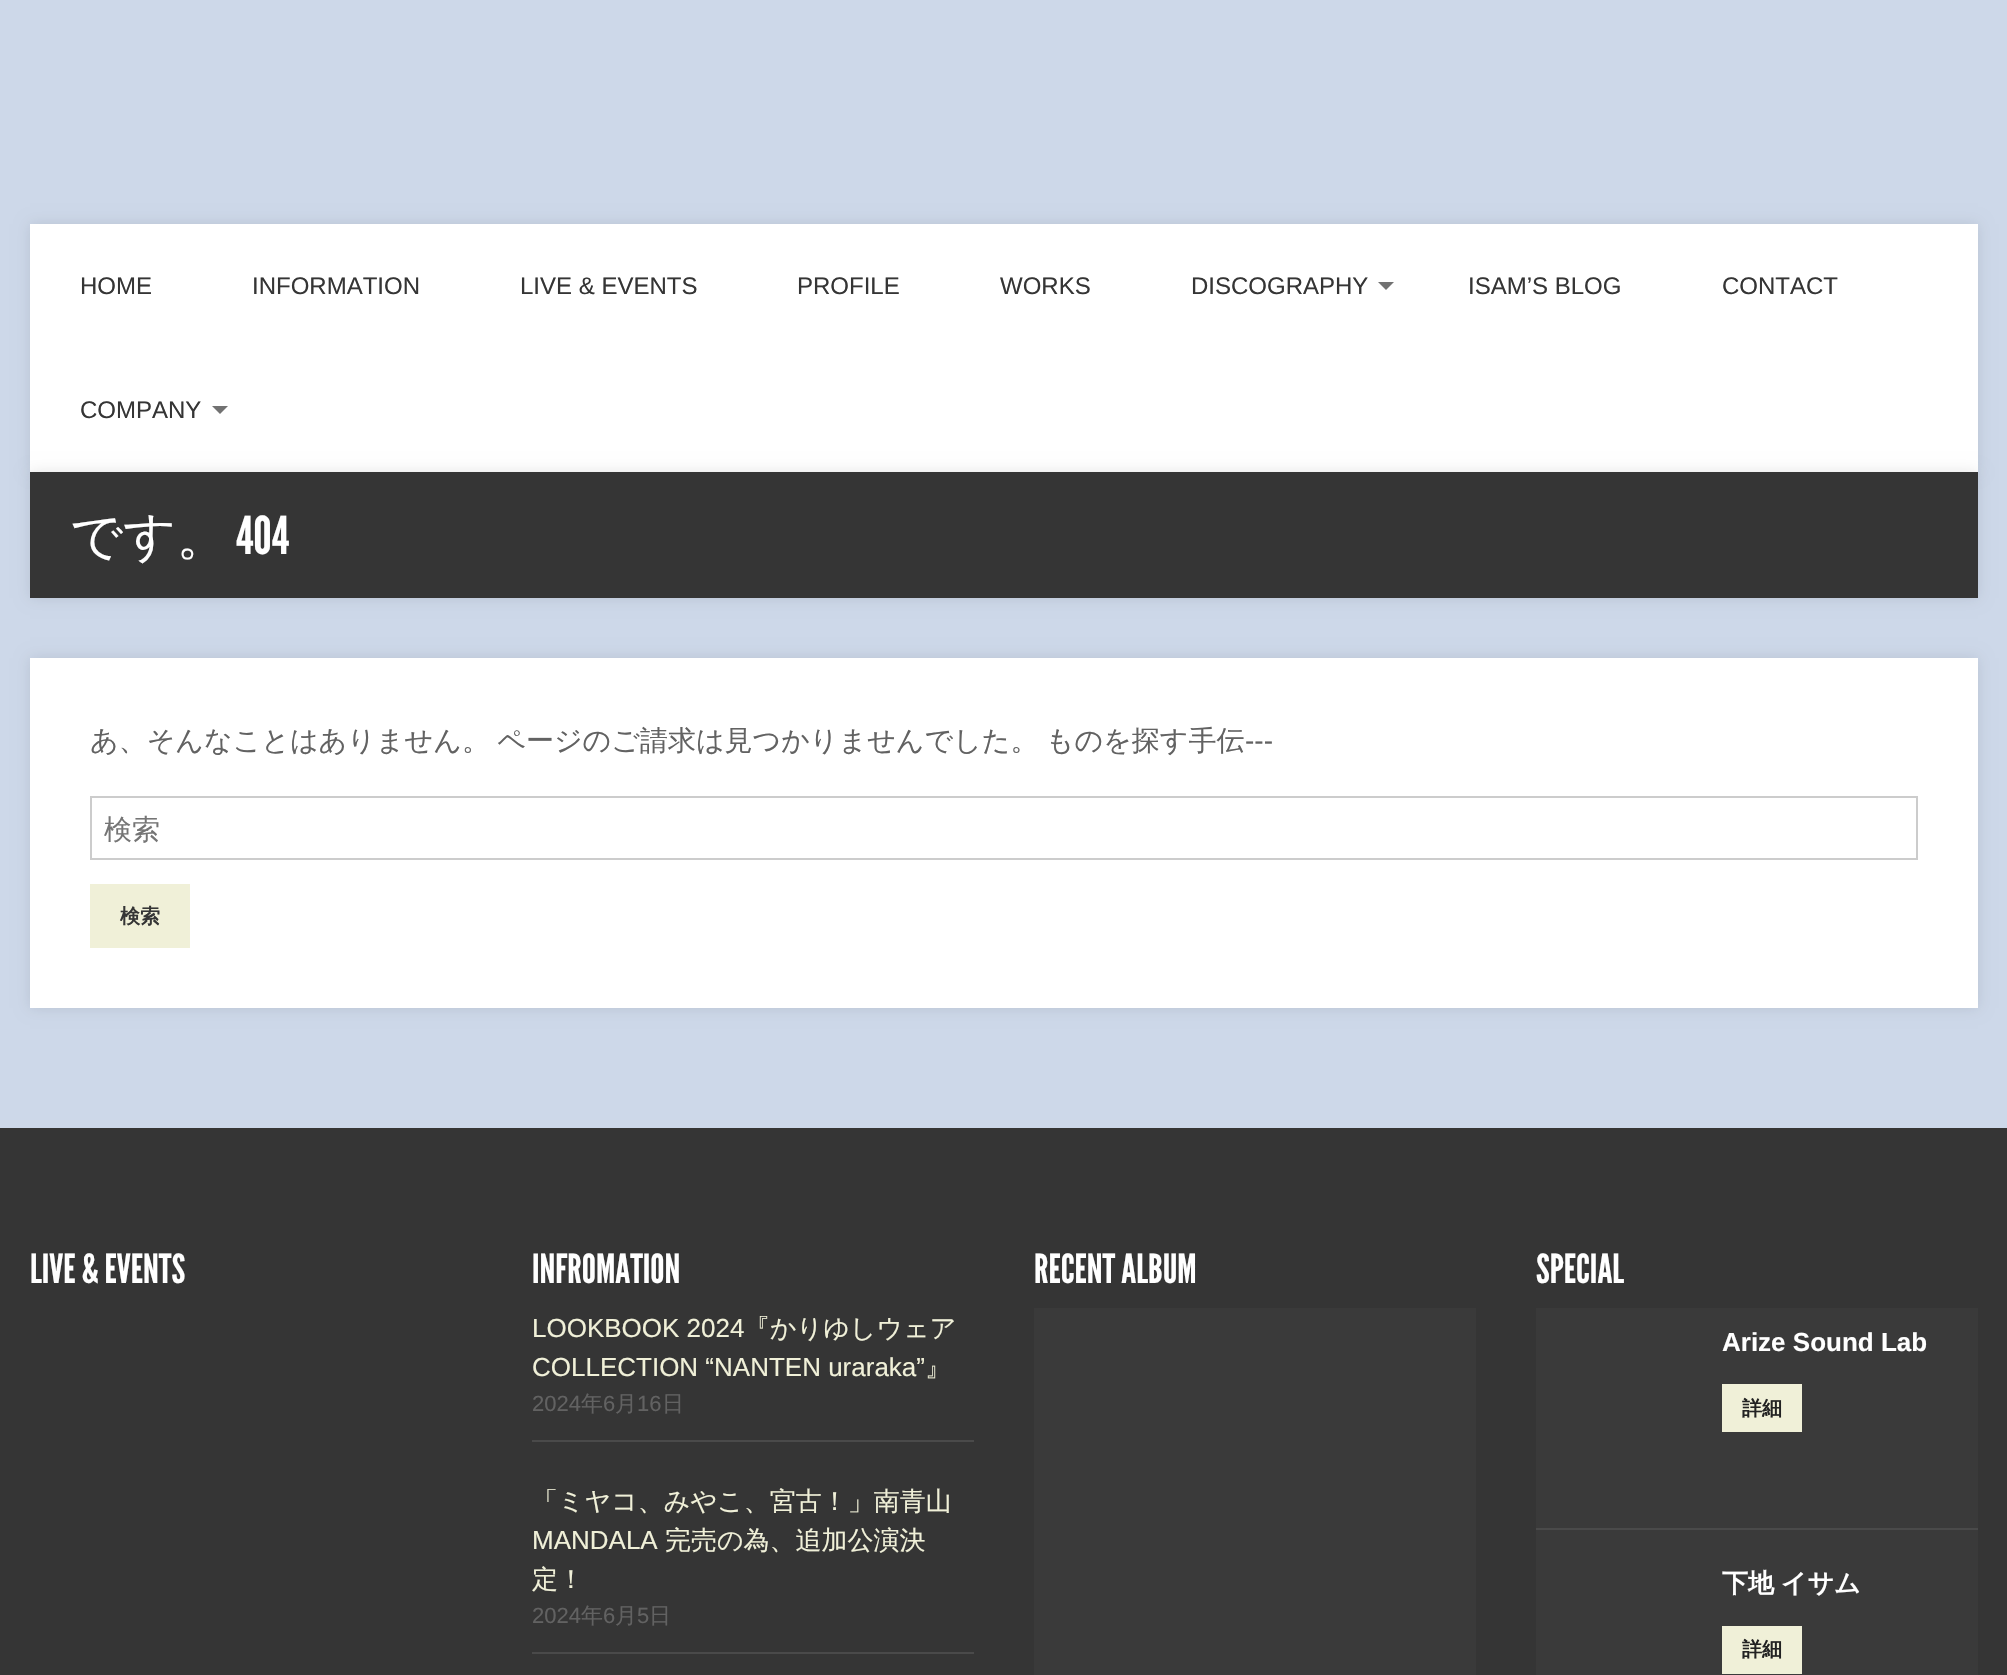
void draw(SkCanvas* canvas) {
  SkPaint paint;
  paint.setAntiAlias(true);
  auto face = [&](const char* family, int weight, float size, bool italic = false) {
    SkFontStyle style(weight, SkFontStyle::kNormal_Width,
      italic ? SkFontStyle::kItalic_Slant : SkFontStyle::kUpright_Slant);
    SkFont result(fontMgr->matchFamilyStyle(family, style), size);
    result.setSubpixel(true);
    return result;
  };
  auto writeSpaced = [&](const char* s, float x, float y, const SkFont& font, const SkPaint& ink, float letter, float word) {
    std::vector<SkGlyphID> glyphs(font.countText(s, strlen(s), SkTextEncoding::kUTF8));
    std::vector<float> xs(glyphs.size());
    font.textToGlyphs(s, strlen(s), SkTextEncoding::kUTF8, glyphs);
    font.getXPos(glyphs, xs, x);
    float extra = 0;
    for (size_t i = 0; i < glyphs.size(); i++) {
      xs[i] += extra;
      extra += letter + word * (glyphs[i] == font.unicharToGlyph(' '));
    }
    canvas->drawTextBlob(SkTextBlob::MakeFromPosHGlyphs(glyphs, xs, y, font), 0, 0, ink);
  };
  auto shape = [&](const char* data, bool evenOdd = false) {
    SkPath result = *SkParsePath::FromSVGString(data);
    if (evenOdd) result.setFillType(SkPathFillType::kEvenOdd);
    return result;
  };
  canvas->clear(0xffcdd8e9);
  paint.setColor(0x1a000000);
  paint.setMaskFilter(SkMaskFilter::MakeBlur(kNormal_SkBlurStyle, 7));
  canvas->drawRect(SkRect::MakeXYWH(30, 224, 1948, 248), paint);
  paint.setMaskFilter(nullptr);
  paint.setColor(0xffffffff);
  canvas->drawRect(SkRect::MakeXYWH(30, 224, 1948, 248), paint);
  paint.setColor(0xff727272);
  canvas->drawPath(shape("M1378 282H1394L1386 290Z"), paint);
  canvas->drawPath(shape("M212 406H228L220 414Z"), paint);
  paint.setColor(0x1a000000);
  paint.setMaskFilter(SkMaskFilter::MakeBlur(kNormal_SkBlurStyle, 7));
  canvas->drawRect(SkRect::MakeXYWH(30, 472, 1948, 126), paint);
  paint.setMaskFilter(nullptr);
  paint.setColor(0xff353535);
  canvas->drawRect(SkRect::MakeXYWH(30, 472, 1948, 126), paint);
  paint.setColor(0x1a000000);
  paint.setMaskFilter(SkMaskFilter::MakeBlur(kNormal_SkBlurStyle, 7));
  canvas->drawRect(SkRect::MakeXYWH(30, 658, 1948, 350), paint);
  paint.setMaskFilter(nullptr);
  paint.setColor(0xffffffff);
  canvas->drawRect(SkRect::MakeXYWH(30, 658, 1948, 350), paint);
  paint.setStroke(true);
  paint.setStrokeWidth(2);
  paint.setColor(0xffcccccc);
  canvas->drawRect(SkRect::MakeXYWH(91, 797, 1826, 62), paint);
  paint.setStroke(false);
  {
    const struct { float x, y, w, h; SkColor color; } items[] = {
      {90, 884, 100, 64, 0xfff0f0d8},
      {0, 1128, 2007, 547, 0xff353535},
      {532, 1440, 442, 2, 0xff4a4a4a},
      {532, 1652, 442, 2, 0xff4a4a4a},
      {1034, 1308, 442, 367, 0xff3a3a3a},
      {1536, 1308, 442, 220, 0xff3a3a3a},
      {1536, 1528, 442, 2, 0xff4a4a4a},
      {1722, 1384, 80, 48, 0xfff0f0d8},
      {1536, 1530, 442, 145, 0xff3a3a3a},
      {1722, 1626, 80, 48, 0xfff0f0d8},
    };
    for (auto [x, y, w, h, color] : items) {
      paint.setColor(color);
      canvas->drawRect(SkRect::MakeXYWH(x, y, w, h), paint);
    }
  }
  auto f0 = face("Liberation Sans", 400, 24);
  paint.setColor(0xff353535);
  {
    const struct { const char* s; float x, y; } items[] = {
      {"HOME", 80, 294},
      {"INFORMATION", 252, 294},
      {"LIVE & EVENTS", 520, 294},
      {"PROFILE", 797, 294},
      {"WORKS", 1000, 294},
      {"DISCOGRAPHY", 1191, 294},
      {"ISAM’S BLOG", 1468, 294},
      {"CONTACT", 1722, 294},
      {"COMPANY", 80, 418},
    };
    for (auto [s, x, y] : items) {
      canvas->drawString(s, x, y, f0, paint);
    }
  }
  auto f1 = face("WenQuanYi Zen Hei", 500, 52);
  paint.setColor(0xffffffff);
  canvas->drawString("です。", 70, 554, f1, paint);
  auto f2 = face("League Gothic", 400, 52);
  canvas->drawString("404", 236, 554, f2, paint);
  auto f3 = face("WenQuanYi Zen Hei", 500, 28);
  paint.setColor(0xff626262);
  writeSpaced("あ、そんなことはありません。 ページのご請求は見つかりませんでした。 ものを探す手伝", 90, 750, f3, paint, 0, -1);
  auto f4 = face("Liberation Sans", 400, 28);
  canvas->drawString("---", 1245, 750, f4, paint);
  paint.setColor(0xff757575);
  canvas->drawString("検索", 104, 839, f3, paint);
  auto f5 = face("WenQuanYi Zen Hei", 700, 20);
  paint.setColor(0xff353535);
  canvas->drawString("検索", 120, 923, f5, paint);
  auto f6 = face("League Gothic", 400, 40);
  paint.setColor(0xffffffff);
  canvas->drawString("LIVE & EVENTS", 30, 1283, f6, paint);
  canvas->drawString("INFROMATION", 532, 1283, f6, paint);
  auto f7 = face("Liberation Sans", 400, 26);
  paint.setColor(0xfff0f0d8);
  canvas->drawString("LOOKBOOK 2024", 532, 1337, f7, paint);
  auto f8 = face("WenQuanYi Zen Hei", 500, 26);
  canvas->drawString("『かりゆしウェア", 744, 1337, f8, paint);
  canvas->drawString("COLLECTION “NANTEN uraraka”", 532, 1376, f7, paint);
  canvas->drawString("』", 925, 1376, f8, paint);
  auto f9 = face("Liberation Sans", 400, 22);
  paint.setColor(0xff626262);
  canvas->drawString("2024", 532, 1411, f9, paint);
  auto f10 = face("WenQuanYi Zen Hei", 500, 22);
  canvas->drawString("年", 581, 1411, f10, paint);
  canvas->drawString("6", 603, 1411, f9, paint);
  canvas->drawString("月", 615, 1411, f10, paint);
  canvas->drawString("16", 637, 1411, f9, paint);
  canvas->drawString("日", 662, 1411, f10, paint);
  paint.setColor(0xfff0f0d8);
  canvas->drawString("「ミヤコ、みやこ、宮古！」南青山", 532, 1510, f8, paint);
  canvas->drawString("MANDALA", 532, 1549, f7, paint);
  canvas->drawString("完売の為、追加公演決", 665, 1549, f8, paint);
  canvas->drawString("定！", 532, 1588, f8, paint);
  paint.setColor(0xff626262);
  canvas->drawString("2024", 532, 1623, f9, paint);
  canvas->drawString("年", 581, 1623, f10, paint);
  canvas->drawString("6", 603, 1623, f9, paint);
  canvas->drawString("月", 615, 1623, f10, paint);
  canvas->drawString("5", 637, 1623, f9, paint);
  canvas->drawString("日", 649, 1623, f10, paint);
  paint.setColor(0xffffffff);
  canvas->drawString("RECENT ALBUM", 1034, 1283, f6, paint);
  canvas->drawString("SPECIAL", 1536, 1283, f6, paint);
  auto f11 = face("Liberation Sans", 700, 26);
  canvas->drawString("Arize Sound Lab", 1722, 1351, f11, paint);
  paint.setColor(0xff222222);
  canvas->drawString("詳細", 1742, 1415, f5, paint);
  auto f12 = face("WenQuanYi Zen Hei", 700, 26);
  paint.setColor(0xffffffff);
  writeSpaced("下地 イサム", 1722, 1592, f12, paint, 0, -1);
  paint.setColor(0xff222222);
  canvas->drawString("詳細", 1742, 1656, f5, paint);
}
